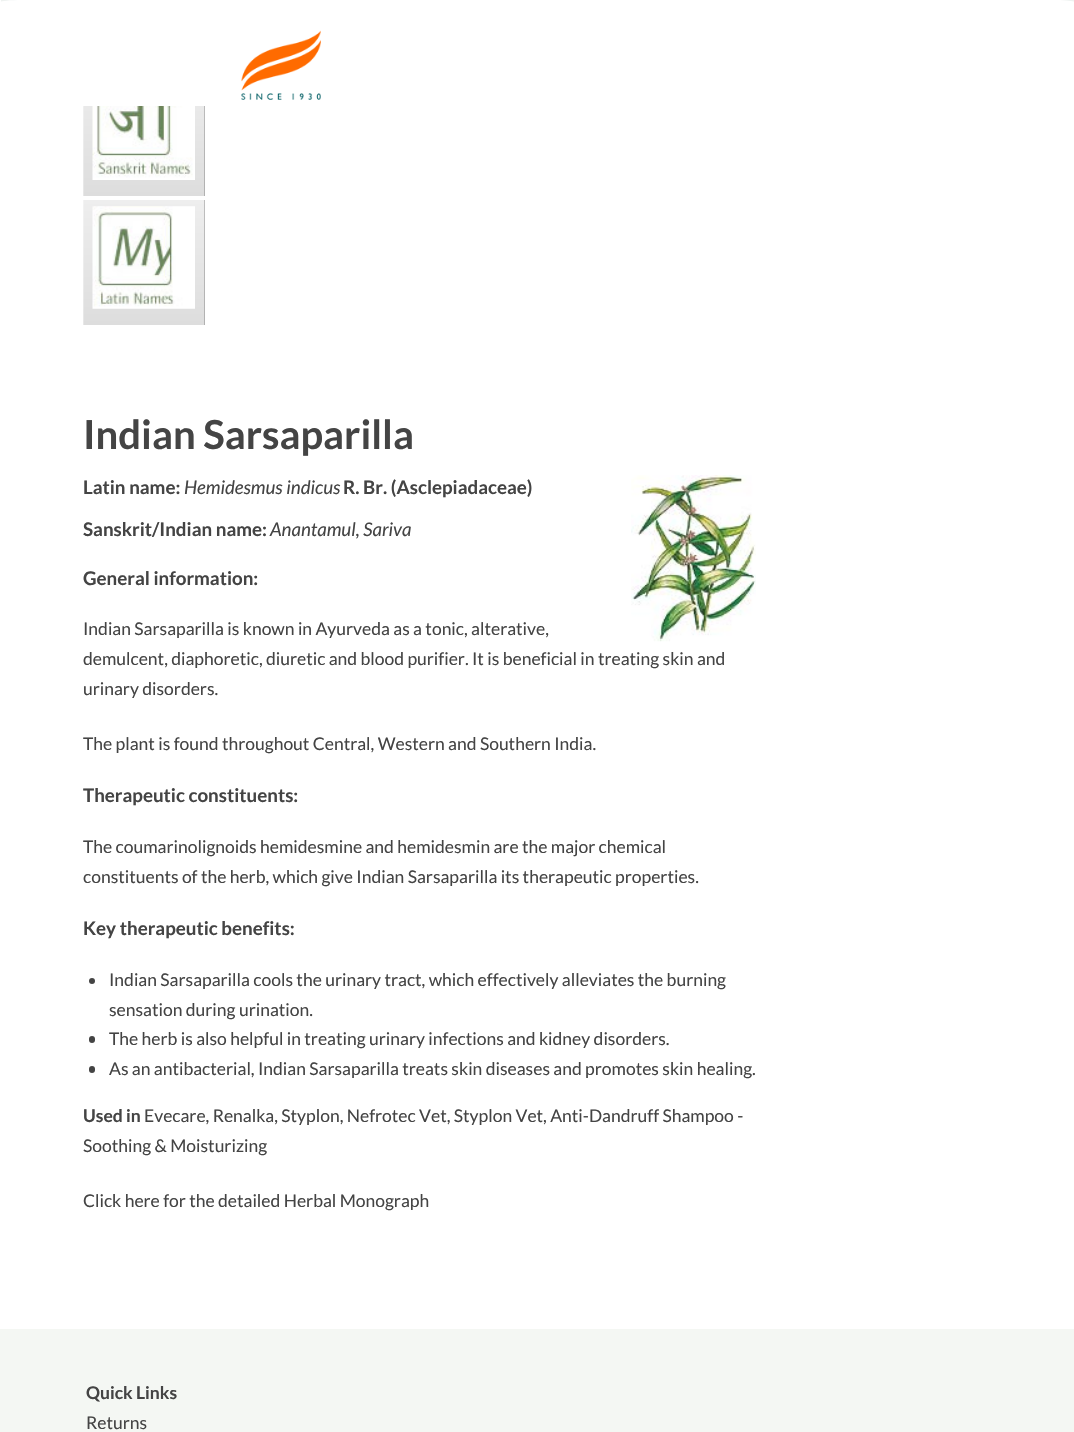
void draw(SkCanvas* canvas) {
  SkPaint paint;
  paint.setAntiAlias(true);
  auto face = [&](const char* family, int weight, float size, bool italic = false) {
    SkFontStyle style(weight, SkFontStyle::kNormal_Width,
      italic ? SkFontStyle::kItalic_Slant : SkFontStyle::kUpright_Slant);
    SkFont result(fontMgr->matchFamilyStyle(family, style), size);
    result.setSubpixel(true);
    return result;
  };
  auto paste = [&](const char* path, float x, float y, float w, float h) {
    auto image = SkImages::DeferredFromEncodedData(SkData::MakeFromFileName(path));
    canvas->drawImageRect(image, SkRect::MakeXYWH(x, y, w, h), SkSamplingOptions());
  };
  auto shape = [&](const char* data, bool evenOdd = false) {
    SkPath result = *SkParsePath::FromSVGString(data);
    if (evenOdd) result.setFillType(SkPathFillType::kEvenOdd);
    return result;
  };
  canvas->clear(0xffffffff);
  paint.setColor(0xffeef2f0);
  canvas->drawRect(SkRect::MakeXYWH(1, 0, 1073, 2), paint);
  paint.setColor(0xffffffff);
  canvas->drawPath(shape("M22 0H1054C1065 0 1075 1 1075 2V104C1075 105 1065 106 1054 106H22C10 106 0 105 0 104V2C0 1 10 0 22 0Z"), paint);
  paste("img/1.png", 241, 30, 80, 70);
  {
    const SkColor colors[] = {0xffeeeeee, 0xffdddddd};
    const float stops[] = {0, 1};
    const SkPoint ends[] = {{84, 71}, {84, 196}};
    paint.setShader(SkGradientShader::MakeLinear(ends, colors, stops, 2, SkTileMode::kClamp));
    paint.setAlpha(255);
  }
  canvas->drawRect(SkRect::MakeXYWH(84, 106, 120, 90), paint);
  {
    const SkColor colors[] = {0xfff3f3f3, 0xffe7e7e7};
    const float stops[] = {0, 1};
    const SkPoint ends[] = {{84, 71}, {84, 196}};
    paint.setShader(SkGradientShader::MakeLinear(ends, colors, stops, 2, SkTileMode::kClamp));
    paint.setAlpha(255);
  }
  canvas->drawRect(SkRect::MakeXYWH(83, 106, 1, 90), paint);
  {
    const SkColor colors[] = {0xffbebebe, 0xffb1b1b1};
    const float stops[] = {0, 1};
    const SkPoint ends[] = {{84, 71}, {84, 196}};
    paint.setShader(SkGradientShader::MakeLinear(ends, colors, stops, 2, SkTileMode::kClamp));
    paint.setAlpha(255);
  }
  canvas->drawRect(SkRect::MakeXYWH(204, 106, 1, 90), paint);
  paste("img/2.png", 92, 106, 103, 74);
  {
    const SkColor colors[] = {0xffeeeeee, 0xffdddddd};
    const float stops[] = {0, 1};
    const SkPoint ends[] = {{84, 200}, {84, 325}};
    paint.setShader(SkGradientShader::MakeLinear(ends, colors, stops, 2, SkTileMode::kClamp));
    paint.setAlpha(255);
  }
  canvas->drawRect(SkRect::MakeXYWH(84, 200, 120, 125), paint);
  {
    const SkColor colors[] = {0xfff3f3f3, 0xffe7e7e7};
    const float stops[] = {0, 1};
    const SkPoint ends[] = {{84, 200}, {84, 325}};
    paint.setShader(SkGradientShader::MakeLinear(ends, colors, stops, 2, SkTileMode::kClamp));
    paint.setAlpha(255);
  }
  canvas->drawRect(SkRect::MakeXYWH(83, 200, 1, 125), paint);
  {
    const SkColor colors[] = {0xffbebebe, 0xffb1b1b1};
    const float stops[] = {0, 1};
    const SkPoint ends[] = {{84, 200}, {84, 325}};
    paint.setShader(SkGradientShader::MakeLinear(ends, colors, stops, 2, SkTileMode::kClamp));
    paint.setAlpha(255);
  }
  canvas->drawRect(SkRect::MakeXYWH(204, 200, 1, 125), paint);
  paste("img/3.png", 92, 206, 103, 103);
  paste("img/4.png", 631, 475, 125, 167);
  paint.setShader(nullptr);
  paint.setColor(0xff444444);
  canvas->drawCircle(92, 981, 3, paint);
  canvas->drawRoundRect(SkRect::MakeXYWH(89, 1036, 6, 7), 3, 3, paint);
  canvas->drawRoundRect(SkRect::MakeXYWH(89, 1066, 6, 7), 3, 3, paint);
  paint.setColor(0xfff4f7f3);
  canvas->drawRect(SkRect::MakeXYWH(0, 1329, 1074, 103), paint);
  auto f0 = face("Lato", 700, 40);
  paint.setColor(0xff444444);
  canvas->drawString("Indian Sarsaparilla", 83, 449, f0, paint);
  auto f1 = face("Lato", 700, 18.75f);
  canvas->drawString("Latin name:", 83, 494, f1, paint);
  auto f2 = face("Lato", 400, 18.75f, true);
  canvas->drawString("Hemidesmus indicus", 184, 494, f2, paint);
  canvas->drawString("R. Br. (Asclepiadaceae)", 343, 494, f1, paint);
  canvas->drawString("Sanskrit/Indian name:", 83, 536, f1, paint);
  canvas->drawString("Anantamul, Sariva", 270, 536, f2, paint);
  canvas->drawString("General information:", 83, 585, f1, paint);
  auto f3 = face("Lato", 400, 17.5f);
  {
    const struct { const char* s; float x, y; } items[] = {
      {"Indian Sarsaparilla is known in Ayurveda as a tonic, alterative,", 83, 635},
      {"demulcent, diaphoretic, diuretic and blood purifier. It is beneficial in treating skin and", 83, 665},
      {"urinary disorders.", 83, 695},
      {"The plant is found throughout Central, Western and Southern India.", 83, 750},
    };
    for (auto [s, x, y] : items) {
      canvas->drawString(s, x, y, f3, paint);
    }
  }
  canvas->drawString("Therapeutic constituents:", 83, 802, f1, paint);
  canvas->drawString("The coumarinolignoids hemidesmine and hemidesmin are the major chemical", 83, 853, f3, paint);
  canvas->drawString("constituents of the herb, which give Indian Sarsaparilla its therapeutic properties.", 83, 883, f3, paint);
  canvas->drawString("Key therapeutic benefits:", 83, 935, f1, paint);
  {
    const struct { const char* s; float x, y; } items[] = {
      {"Indian Sarsaparilla cools the urinary tract, which effectively alleviates the burning", 109, 986},
      {"sensation during urination.", 109, 1016},
      {"The herb is also helpful in treating urinary infections and kidney disorders.", 109, 1045},
      {"As an antibacterial, Indian Sarsaparilla treats skin diseases and promotes skin healing.", 109, 1075},
    };
    for (auto [s, x, y] : items) {
      canvas->drawString(s, x, y, f3, paint);
    }
  }
  auto f4 = face("Lato", 700, 17.5f);
  canvas->drawString("Used in", 83, 1122, f4, paint);
  {
    const struct { const char* s; float x, y; } items[] = {
      {"Evecare, Renalka, Styplon, Nefrotec Vet, Styplon Vet, Anti-Dandruff Shampoo -", 144, 1122},
      {"Soothing & Moisturizing", 83, 1152},
      {"Click here for the detailed Herbal Monograph", 83, 1207},
    };
    for (auto [s, x, y] : items) {
      canvas->drawString(s, x, y, f3, paint);
    }
  }
  canvas->drawString("Quick Links", 86, 1399, f4, paint);
  canvas->drawString("Returns", 86, 1429, f3, paint);
}
